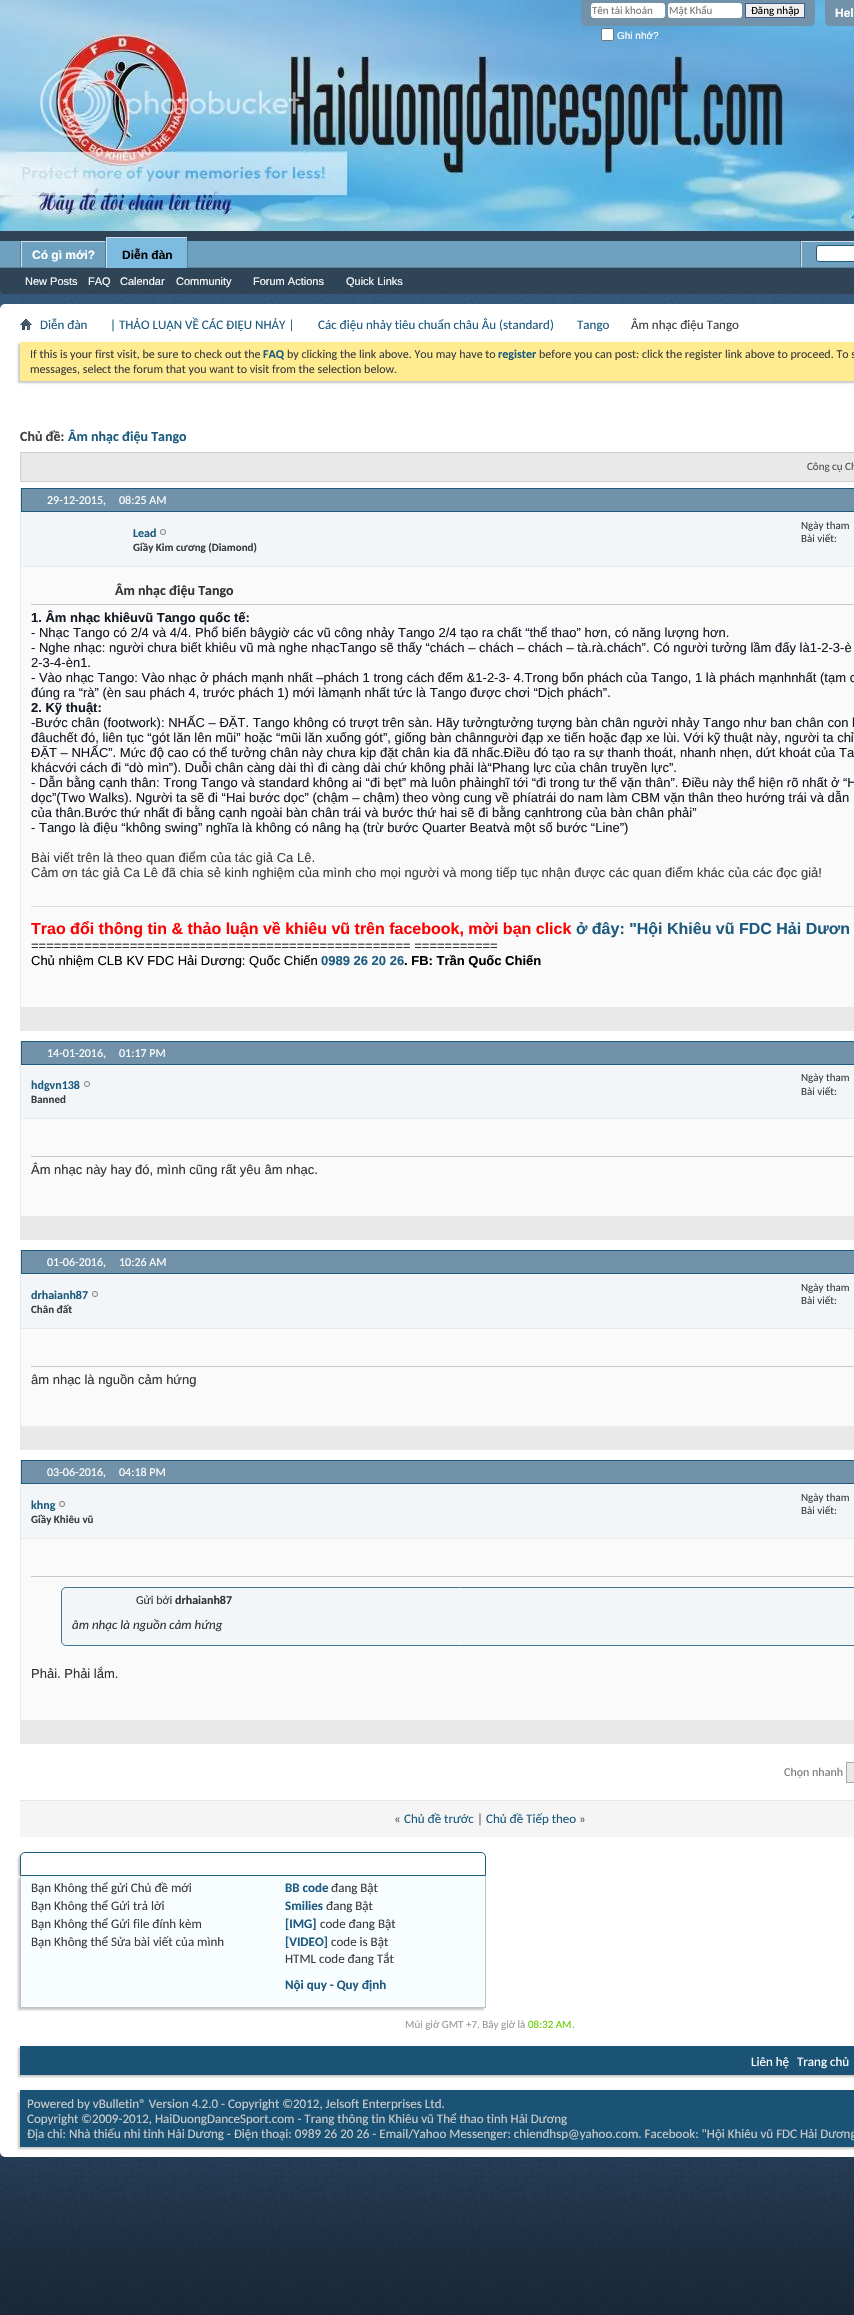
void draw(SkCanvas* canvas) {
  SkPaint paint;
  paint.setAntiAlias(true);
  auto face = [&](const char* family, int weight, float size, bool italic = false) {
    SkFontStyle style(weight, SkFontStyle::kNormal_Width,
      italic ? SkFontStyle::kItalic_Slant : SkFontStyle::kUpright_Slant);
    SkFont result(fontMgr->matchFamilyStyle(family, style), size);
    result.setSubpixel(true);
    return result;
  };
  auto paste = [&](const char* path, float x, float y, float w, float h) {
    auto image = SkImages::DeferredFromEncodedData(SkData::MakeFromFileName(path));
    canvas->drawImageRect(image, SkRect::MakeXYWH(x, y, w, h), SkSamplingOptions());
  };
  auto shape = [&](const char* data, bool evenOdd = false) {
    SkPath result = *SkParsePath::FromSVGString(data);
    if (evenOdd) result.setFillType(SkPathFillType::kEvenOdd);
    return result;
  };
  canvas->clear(0xffffffff);
  paste("img/1.png", 0, 289, 854, 2026);
  paint.setColor(0xff2f4456);
  canvas->drawPath(shape("M0 0H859V289C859 292 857 294 854 294H5C2 294 0 292 0 289Z"), paint);
  paste("img/2.png", 0, 0, 854, 231);
  paint.setColor(0xff7192a8);
  canvas->drawPath(shape("M581 0H815V21C815 24 813 26 810 26H586C583 26 581 24 581 21Z"), paint);
  paint.setColor(0xffffffff);
  canvas->drawRoundRect(SkRect::MakeXYWH(591, 3, 74, 15), 3, 3, paint);
  canvas->drawRoundRect(SkRect::MakeXYWH(668, 3, 74, 15), 3, 3, paint);
  paint.setColor(0xffefefef);
  canvas->drawRect(SkRect::MakeXYWH(745.5f, 3.5f, 59, 14), paint);
  paint.setStroke(true);
  paint.setStrokeWidth(1);
  paint.setColor(0xff415d8d);
  canvas->drawRect(SkRect::MakeXYWH(745.5f, 3.5f, 59, 14), paint);
  paint.setStroke(false);
  paint.setColor(0xffffffff);
  canvas->drawRoundRect(SkRect::MakeXYWH(601.5f, 28.5f, 12, 12), 1.5f, 1.5f, paint);
  paint.setStroke(true);
  paint.setColor(0xff767676);
  canvas->drawRoundRect(SkRect::MakeXYWH(601.5f, 28.5f, 12, 12), 1.5f, 1.5f, paint);
  paint.setStroke(false);
  paint.setColor(0xff7192a8);
  canvas->drawPath(shape("M825 0H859V21C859 24 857 26 854 26H830C827 26 825 24 825 21Z"), paint);
  paint.setColor(0xff2f4456);
  canvas->drawPath(shape("M0 241H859V289C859 292 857 294 854 294H5C2 294 0 292 0 289Z"), paint);
  {
    const struct { float x, y, w, h; SkColor color; } items[] = {
      {0, 241, 854, 26, 0xff6ea1c0},
      {187, 241, 1, 26, 0xff5a7f97},
      {105, 241, 1, 27, 0xff5a7f97},
      {20, 241, 1, 27, 0xff5a7f97},
      {21, 241, 84, 1, 0xffcedfeb},
      {21, 241, 1, 27, 0xffcedfeb},
      {0, 267, 854, 1, 0xff5a7f97},
      {107, 238, 80, 30, 0xff7ebbe0},
      {106, 237, 81, 1, 0xffcedfeb},
      {106, 237, 1, 31, 0xffcedfeb},
      {800, 241, 1, 26, 0xff5a7f97},
      {801, 241, 53, 1, 0xffcedfeb},
      {801, 241, 1, 26, 0xffcedfeb},
    };
    for (auto [x, y, w, h, color] : items) {
      paint.setColor(color);
      canvas->drawRect(SkRect::MakeXYWH(x, y, w, h), paint);
    }
  }
  paint.setColor(0xffffffff);
  canvas->drawRoundRect(SkRect::MakeXYWH(816.5f, 245.5f, 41, 16), 2.5f, 2.5f, paint);
  paint.setStroke(true);
  paint.setColor(0xff1d5b80);
  canvas->drawRoundRect(SkRect::MakeXYWH(816.5f, 245.5f, 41, 16), 2.5f, 2.5f, paint);
  paint.setStroke(false);
  paint.setColor(0xffffffff);
  canvas->drawRoundRect(SkRect::MakeXYWH(0, 304, 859, 1853), 5, 5, paint);
  paste("img/3.png", 20, 319, 12, 11);
  paint.setColor(0xffc8c8c8);
  paint.setMaskFilter(SkMaskFilter::MakeBlur(kNormal_SkBlurStyle, 1));
  canvas->drawRect(SkRect::MakeXYWH(18, 344, 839, 39), paint);
  paint.setMaskFilter(nullptr);
  paint.setColor(0xffffeb90);
  canvas->drawRect(SkRect::MakeXYWH(20, 342, 834, 39), paint);
  paint.setColor(0xffe9e9e9);
  canvas->drawRect(SkRect::MakeXYWH(20.5f, 452.5f, 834, 29), paint);
  paint.setStroke(true);
  paint.setColor(0xffcecece);
  canvas->drawRect(SkRect::MakeXYWH(20.5f, 452.5f, 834, 29), paint);
  paint.setColor(0xffe9e9e9);
  canvas->drawRect(SkRect::MakeXYWH(20.5f, 488.5f, 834, 542), paint);
  paint.setStroke(false);
  paint.setColor(0xff7192a8);
  canvas->drawRect(SkRect::MakeXYWH(21.5f, 488.5f, 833, 23), paint);
  paint.setStroke(true);
  paint.setColor(0xff1d5b80);
  canvas->drawRect(SkRect::MakeXYWH(21.5f, 488.5f, 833, 23), paint);
  paint.setStroke(false);
  paint.setColor(0xfff2f6f8);
  canvas->drawRect(SkRect::MakeXYWH(21, 512, 833, 54), paint);
  paint.setColor(0xffe9e9e9);
  canvas->drawRect(SkRect::MakeXYWH(21, 566, 833, 1), paint);
  paste("img/4.png", 160, 529, 6, 6);
  {
    const struct { float x, y, w, h; SkColor color; } items[] = {
      {21, 567, 833, 440, 0xfffafafa},
      {31, 604, 823, 1, 0xffc8c8c8},
      {31, 906, 823, 1, 0xffdddddd},
      {21, 1007, 833, 23, 0xffe9e9e9},
    };
    for (auto [x, y, w, h, color] : items) {
      paint.setColor(color);
      canvas->drawRect(SkRect::MakeXYWH(x, y, w, h), paint);
    }
  }
  paint.setStroke(true);
  canvas->drawRect(SkRect::MakeXYWH(20.5f, 1041.5f, 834, 198), paint);
  paint.setStroke(false);
  paint.setColor(0xff7192a8);
  canvas->drawRect(SkRect::MakeXYWH(21.5f, 1041.5f, 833, 23), paint);
  paint.setStroke(true);
  paint.setColor(0xff1d5b80);
  canvas->drawRect(SkRect::MakeXYWH(21.5f, 1041.5f, 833, 23), paint);
  paint.setStroke(false);
  paint.setColor(0xfff2f6f8);
  canvas->drawRect(SkRect::MakeXYWH(21, 1065, 833, 53), paint);
  paint.setColor(0xffe9e9e9);
  canvas->drawRect(SkRect::MakeXYWH(21, 1118, 833, 1), paint);
  paste("img/4.png", 84, 1081, 6, 6);
  {
    const struct { float x, y, w, h; SkColor color; } items[] = {
      {21, 1119, 833, 97, 0xfffafafa},
      {31, 1156, 823, 1, 0xffc8c8c8},
      {21, 1216, 833, 23, 0xffe9e9e9},
    };
    for (auto [x, y, w, h, color] : items) {
      paint.setColor(color);
      canvas->drawRect(SkRect::MakeXYWH(x, y, w, h), paint);
    }
  }
  paint.setStroke(true);
  canvas->drawRect(SkRect::MakeXYWH(20.5f, 1250.5f, 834, 199), paint);
  paint.setStroke(false);
  paint.setColor(0xff7192a8);
  canvas->drawRect(SkRect::MakeXYWH(21.5f, 1250.5f, 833, 23), paint);
  paint.setStroke(true);
  paint.setColor(0xff1d5b80);
  canvas->drawRect(SkRect::MakeXYWH(21.5f, 1250.5f, 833, 23), paint);
  paint.setStroke(false);
  paint.setColor(0xfff2f6f8);
  canvas->drawRect(SkRect::MakeXYWH(21, 1274, 833, 54), paint);
  paint.setColor(0xffe9e9e9);
  canvas->drawRect(SkRect::MakeXYWH(21, 1328, 833, 1), paint);
  paste("img/4.png", 92, 1291, 6, 6);
  {
    const struct { float x, y, w, h; SkColor color; } items[] = {
      {21, 1329, 833, 97, 0xfffafafa},
      {31, 1366, 823, 1, 0xffc8c8c8},
      {21, 1426, 833, 23, 0xffe9e9e9},
    };
    for (auto [x, y, w, h, color] : items) {
      paint.setColor(color);
      canvas->drawRect(SkRect::MakeXYWH(x, y, w, h), paint);
    }
  }
  paint.setStroke(true);
  canvas->drawRect(SkRect::MakeXYWH(20.5f, 1460.5f, 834, 283), paint);
  paint.setStroke(false);
  paint.setColor(0xff7192a8);
  canvas->drawRect(SkRect::MakeXYWH(21.5f, 1460.5f, 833, 23), paint);
  paint.setStroke(true);
  paint.setColor(0xff1d5b80);
  canvas->drawRect(SkRect::MakeXYWH(21.5f, 1460.5f, 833, 23), paint);
  paint.setStroke(false);
  paint.setColor(0xfff2f6f8);
  canvas->drawRect(SkRect::MakeXYWH(21, 1484, 833, 54), paint);
  paint.setColor(0xffe9e9e9);
  canvas->drawRect(SkRect::MakeXYWH(21, 1538, 833, 1), paint);
  paste("img/4.png", 59, 1501, 6, 6);
  paint.setColor(0xfffafafa);
  canvas->drawRect(SkRect::MakeXYWH(21, 1539, 833, 181), paint);
  paint.setColor(0xffc8c8c8);
  canvas->drawRect(SkRect::MakeXYWH(31, 1576, 823, 1), paint);
  paint.setColor(0xfff2f6f8);
  canvas->drawRoundRect(SkRect::MakeXYWH(61.5f, 1587.5f, 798, 58), 4.5f, 4.5f, paint);
  paint.setStroke(true);
  paint.setColor(0xff417394);
  canvas->drawRoundRect(SkRect::MakeXYWH(61.5f, 1587.5f, 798, 58), 4.5f, 4.5f, paint);
  paint.setStroke(false);
  paint.setColor(0xffe9e9e9);
  canvas->drawRect(SkRect::MakeXYWH(21, 1720, 833, 23), paint);
  canvas->drawRect(SkRect::MakeXYWH(846.5f, 1762.5f, 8, 20), paint);
  paint.setStroke(true);
  paint.setColor(0xffa8a8a8);
  canvas->drawRect(SkRect::MakeXYWH(846.5f, 1762.5f, 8, 20), paint);
  paint.setStroke(false);
  paint.setColor(0xfff5f5f5);
  canvas->drawRect(SkRect::MakeXYWH(20, 1801, 834, 36), paint);
  paint.setColor(0xffe7e7e7);
  canvas->drawRect(SkRect::MakeXYWH(20, 1800, 834, 1), paint);
  paint.setColor(0xffc8c8c8);
  paint.setMaskFilter(SkMaskFilter::MakeBlur(kNormal_SkBlurStyle, 1));
  canvas->drawRoundRect(SkRect::MakeXYWH(18, 1854, 466, 24), 5, 5, paint);
  paint.setMaskFilter(nullptr);
  paint.setColor(0xffffffff);
  canvas->drawPath(shape("M25 1852.5H481C483.5 1852.5 485.5 1854.5 485.5 1857V1875.5H20.5V1857C20.5 1854.5 22.5 1852.5 25 1852.5Z"), paint);
  paint.setStroke(true);
  paint.setColor(0xff1d5b80);
  canvas->drawPath(shape("M25 1852.5H481C483.5 1852.5 485.5 1854.5 485.5 1857V1875.5H20.5V1857C20.5 1854.5 22.5 1852.5 25 1852.5Z"), paint);
  paint.setStroke(false);
  paint.setColor(0xffc8c8c8);
  paint.setMaskFilter(SkMaskFilter::MakeBlur(kNormal_SkBlurStyle, 1));
  canvas->drawRect(SkRect::MakeXYWH(18, 1878, 466, 132), paint);
  paint.setMaskFilter(nullptr);
  {
    const struct { float x, y, w, h; SkColor color; } items[] = {
      {21, 1876, 464, 131, 0xfff8fdff},
      {485, 1876, 1, 132, 0xffc4c4c4},
      {20, 2007, 466, 1, 0xffc4c4c4},
      {20, 1876, 1, 132, 0xffc4c4c4},
    };
    for (auto [x, y, w, h, color] : items) {
      paint.setColor(color);
      canvas->drawRect(SkRect::MakeXYWH(x, y, w, h), paint);
    }
  }
  paint.setColor(0xffc8c8c8);
  paint.setMaskFilter(SkMaskFilter::MakeBlur(kNormal_SkBlurStyle, 1));
  canvas->drawRect(SkRect::MakeXYWH(18, 2048, 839, 29), paint);
  paint.setMaskFilter(nullptr);
  paint.setColor(0xff1a5375);
  canvas->drawRect(SkRect::MakeXYWH(20, 2046, 834, 29), paint);
  paint.setColor(0xffc8c8c8);
  paint.setMaskFilter(SkMaskFilter::MakeBlur(kNormal_SkBlurStyle, 1));
  canvas->drawRect(SkRect::MakeXYWH(18, 2092, 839, 57), paint);
  paint.setMaskFilter(nullptr);
  paint.setColor(0xff1a5375);
  canvas->drawRect(SkRect::MakeXYWH(20, 2090, 834, 57), paint);
  auto f0 = face("Carlito", 400, 11);
  paint.setColor(0xff777777);
  canvas->drawString("Tên tài khoản", 592, 14, f0, paint);
  canvas->drawString("Mật Khẩu", 669, 14, f0, paint);
  paint.setColor(0xff000000);
  canvas->drawString("Đăng nhập", 751, 14, f0, paint);
  auto f1 = face("Liberation Sans", 400, 10);
  paint.setColor(0xffffffff);
  canvas->drawString("Ghi nhớ?", 617, 39, f1, paint);
  auto f2 = face("Liberation Sans", 700, 12);
  canvas->drawString("Hel", 835, 17, f2, paint);
  paint.setColor(0xff000000);
  canvas->drawString("Diễn đàn", 122, 259, f2, paint);
  auto f3 = face("Liberation Sans", 400, 11);
  paint.setColor(0xffffffff);
  {
    const struct { const char* s; float x, y; } items[] = {
      {"New Posts", 25, 285},
      {"FAQ", 88, 285},
      {"Calendar", 120, 285},
      {"Community", 176, 285},
      {"Forum Actions", 253, 285},
      {"Quick Links", 346, 285},
    };
    for (auto [s, x, y] : items) {
      canvas->drawString(s, x, y, f3, paint);
    }
  }
  canvas->drawString("Có gì mới?", 32, 259, f2, paint);
  auto f4 = face("Carlito", 400, 13);
  paint.setColor(0xff1d5b80);
  {
    const struct { const char* s; float x, y; } items[] = {
      {"Diễn đàn", 40, 329},
      {"| THẢO LUẬN VỀ CÁC ĐIỆU NHẢY |", 110, 329},
      {"Các điệu nhảy tiêu chuẩn châu Âu (standard)", 318, 329},
      {"Tango", 577, 329},
    };
    for (auto [s, x, y] : items) {
      canvas->drawString(s, x, y, f4, paint);
    }
  }
  paint.setColor(0xff3e3e3e);
  canvas->drawString("Âm nhạc điệu Tango", 631, 329, f4, paint);
  auto f5 = face("Carlito", 400, 12);
  canvas->drawString("If this is your first visit, be sure to check out the", 30, 358, f5, paint);
  auto f6 = face("Carlito", 700, 12);
  paint.setColor(0xff1d5b80);
  canvas->drawString("FAQ", 263, 358, f6, paint);
  paint.setColor(0xff3e3e3e);
  canvas->drawString("by clicking the link above. You may have to", 287, 358, f5, paint);
  paint.setColor(0xff1d5b80);
  canvas->drawString("register", 498, 358, f6, paint);
  paint.setColor(0xff3e3e3e);
  canvas->drawString("before you can post: click the register link above to proceed. To s", 539, 358, f5, paint);
  canvas->drawString("messages, select the forum that you want to visit from the selection below.", 30, 373, f5, paint);
  auto f7 = face("Carlito", 700, 14);
  canvas->drawString("Chủ đề:", 20, 441, f7, paint);
  paint.setColor(0xff1d5b80);
  canvas->drawString("Âm nhạc điệu Tango", 68, 441, f7, paint);
  paint.setColor(0xff4e4e4e);
  canvas->drawString("Công cụ Ch", 807, 470, f0, paint);
  paint.setColor(0xffffffff);
  canvas->drawString("29-12-2015,", 47, 504, f5, paint);
  canvas->drawString("08:25 AM", 119, 504, f5, paint);
  paint.setColor(0xff1d5b80);
  canvas->drawString("Lead", 133, 537, f6, paint);
  auto f8 = face("Carlito", 700, 11);
  paint.setColor(0xff3e3e3e);
  canvas->drawString("Giầy Kim cương (Diamond)", 133, 551, f8, paint);
  canvas->drawString("Ngày tham", 801, 529, f0, paint);
  canvas->drawString("Bài viết:", 801, 542, f0, paint);
  paint.setColor(0xff333333);
  canvas->drawString("Âm nhạc điệu Tango", 115, 595, f7, paint);
  auto f9 = face("Liberation Sans", 700, 13);
  paint.setColor(0xff141823);
  canvas->drawString("1. Âm nhạc khiêuvũ Tango quốc tế:", 31, 622, f9, paint);
  auto f10 = face("Liberation Sans", 400, 13);
  {
    const struct { const char* s; float x, y; } items[] = {
      {"- Nhạc Tango có 2/4 và 4/4. Phổ biến bâygiờ các vũ công nhảy Tango 2/4 tạo ra chất “thể thao” hơn, có năng lượng hơn.", 31, 637},
      {"- Nghe nhạc: người chưa biết khiêu vũ mà nghe nhạcTango sẽ thấy “chách – chách – chách – tà.rà.chách”. Có người tưởng lầm đấy là1-2-3-è", 31, 652},
      {"2-3-4-èn1.", 31, 667},
      {"- Vào nhạc Tango: Vào nhạc ở phách mạnh nhất –phách 1 trong cách đếm &1-2-3- 4.Trong bốn phách của Tango, 1 là phách mạnhnhất (tạm c", 31, 682},
      {"đúng ra “rà” (èn sau phách 4, trước phách 1) mới làmạnh nhất tức là Tango được chơi “Dịch phách”.", 31, 697},
    };
    for (auto [s, x, y] : items) {
      canvas->drawString(s, x, y, f10, paint);
    }
  }
  canvas->drawString("2. Kỹ thuật:", 31, 712, f9, paint);
  {
    const struct { const char* s; float x, y; } items[] = {
      {"-Bước chân (footwork): NHẤC – ĐẶT. Tango không có trượt trên sàn. Hãy tưởngtưởng tượng bàn chân người nhảy Tango như ban chân con h", 31, 727},
      {"đâuchết đó, liên tục “gót lăn lên mũi” hoặc “mũi lăn xuống gót”, giống bàn chânngười đạp xe tiến hoặc đạp xe lùi. Với kỹ thuật này, người ta chỉ", 31, 742},
      {"ĐẶT – NHẤC”. Mức độ cao có thể tưởng chân này chưa kịp đặt chân kia đã nhấc.Điều đó tạo ra sự thanh thoát, nhanh nhẹn, dứt khoát của Ta", 31, 757},
      {"khácvới cách đi “dò mìn”). Duỗi chân càng dài thì đi càng dài chứ không phải là“Phang lực của chân truyền lực”.", 31, 772},
      {"- Dẫn bằng cạnh thân: Trong Tango và standard không ai “đi bẹt” mà luôn phảinghĩ tới “đi trong tư thế vặn thân”. Điều này thể hiện rõ nhất ở “H", 31, 787},
      {"dọc”(Two Walks). Người ta sẽ đi “Hai bước dọc” (chậm – chậm) theo vòng cung về phíatrái do nam làm CBM vặn thân theo hướng trái và dẫn", 31, 802},
      {"của thân.Bước thứ nhất đi bằng cạnh ngoài bàn chân trái và bước thứ hai sẽ đi bằng cạnhtrong của bàn chân phải”", 31, 817},
      {"- Tango là điệu “không swing” nghĩa là không có nâng hạ (trừ bước Quarter Beatvà một số bước “Line”)", 31, 832},
    };
    for (auto [s, x, y] : items) {
      canvas->drawString(s, x, y, f10, paint);
    }
  }
  paint.setColor(0xff3e3e3e);
  canvas->drawString("Bài viết trên là theo quan điểm của tác giả Ca Lê.", 31, 862, f10, paint);
  canvas->drawString("Cảm ơn tác giả Ca Lê đã chia sẻ kinh nghiệm của mình cho mọi người và mong tiếp tục nhận được các quan điểm khác của các đọc giả!", 31, 877, f10, paint);
  auto f11 = face("Liberation Sans", 700, 16);
  paint.setColor(0xffff0000);
  canvas->drawString("Trao đổi thông tin & thảo luận về khiêu vũ trên facebook, mời bạn click", 31, 934, f11, paint);
  paint.setColor(0xff1d5b80);
  canvas->drawString("ở đây: \"Hội Khiêu vũ FDC Hải Dươn", 576, 934, f11, paint);
  paint.setColor(0xff000000);
  canvas->drawString("================================================== ===========", 31, 950, f10, paint);
  canvas->drawString("Chủ nhiệm CLB KV FDC Hải Dương: Quốc Chiến", 31, 965, f10, paint);
  paint.setColor(0xff1d5b80);
  canvas->drawString("0989 26 20 26", 321, 965, f9, paint);
  paint.setColor(0xff000000);
  canvas->drawString(". FB: Trần Quốc Chiến", 404, 965, f9, paint);
  paint.setColor(0xffffffff);
  canvas->drawString("14-01-2016,", 47, 1057, f5, paint);
  canvas->drawString("01:17 PM", 119, 1057, f5, paint);
  paint.setColor(0xff1d5b80);
  canvas->drawString("hdgvn138", 31, 1089, f6, paint);
  paint.setColor(0xff3e3e3e);
  canvas->drawString("Banned", 31, 1103, f8, paint);
  canvas->drawString("Ngày tham", 801, 1081, f0, paint);
  canvas->drawString("Bài viết:", 801, 1095, f0, paint);
  paint.setColor(0xff333333);
  canvas->drawString("Âm nhạc này hay đó, mình cũng rất yêu âm nhạc.", 31, 1174, f10, paint);
  paint.setColor(0xffffffff);
  canvas->drawString("01-06-2016,", 47, 1266, f5, paint);
  canvas->drawString("10:26 AM", 119, 1266, f5, paint);
  paint.setColor(0xff1d5b80);
  canvas->drawString("drhaianh87", 31, 1299, f6, paint);
  paint.setColor(0xff3e3e3e);
  canvas->drawString("Chân đất", 31, 1313, f8, paint);
  canvas->drawString("Ngày tham", 801, 1291, f0, paint);
  canvas->drawString("Bài viết:", 801, 1304, f0, paint);
  paint.setColor(0xff333333);
  canvas->drawString("âm nhạc là nguồn cảm hứng", 31, 1384, f10, paint);
  paint.setColor(0xffffffff);
  canvas->drawString("03-06-2016,", 47, 1476, f5, paint);
  canvas->drawString("04:18 PM", 119, 1476, f5, paint);
  paint.setColor(0xff1d5b80);
  canvas->drawString("khng", 31, 1509, f6, paint);
  paint.setColor(0xff3e3e3e);
  canvas->drawString("Giầy Khiêu vũ", 31, 1523, f8, paint);
  canvas->drawString("Ngày tham", 801, 1501, f0, paint);
  canvas->drawString("Bài viết:", 801, 1514, f0, paint);
  paint.setColor(0xff333333);
  canvas->drawString("Gửi bởi", 136, 1604, f5, paint);
  canvas->drawString("drhaianh87", 175, 1604, f6, paint);
  auto f12 = face("Carlito", 400, 13, true);
  canvas->drawString("âm nhạc là nguồn cảm hứng", 72, 1629, f12, paint);
  canvas->drawString("Phải. Phải lắm.", 31, 1678, f10, paint);
  paint.setColor(0xff777777);
  canvas->drawString("Chọn nhanh", 784, 1776, f5, paint);
  paint.setColor(0xff5d5d5d);
  canvas->drawString("«", 394, 1823, f4, paint);
  paint.setColor(0xff1d5b80);
  canvas->drawString("Chủ đề trước", 404, 1823, f4, paint);
  paint.setColor(0xff5d5d5d);
  canvas->drawString("|", 477, 1823, f4, paint);
  paint.setColor(0xff1d5b80);
  canvas->drawString("Chủ đề Tiếp theo", 486, 1823, f4, paint);
  paint.setColor(0xff5d5d5d);
  canvas->drawString("»", 579, 1823, f4, paint);
  paint.setColor(0xff3e3e3e);
  {
    const struct { const char* s; float x, y; } items[] = {
      {"Bạn Không thể gửi Chủ đề mới", 31, 1892},
      {"Bạn Không thể Gửi trả lời", 31, 1910},
      {"Bạn Không thể Gửi file đính kèm", 31, 1928},
      {"Bạn Không thể Sửa bài viết của mình", 31, 1946},
    };
    for (auto [s, x, y] : items) {
      canvas->drawString(s, x, y, f4, paint);
    }
  }
  auto f13 = face("Carlito", 700, 13);
  paint.setColor(0xff1d5b80);
  canvas->drawString("BB code", 285, 1892, f13, paint);
  paint.setColor(0xff3e3e3e);
  canvas->drawString("đang Bật", 331, 1892, f4, paint);
  paint.setColor(0xff1d5b80);
  canvas->drawString("Smilies", 285, 1910, f13, paint);
  paint.setColor(0xff3e3e3e);
  canvas->drawString("đang Bật", 326, 1910, f4, paint);
  paint.setColor(0xff1d5b80);
  canvas->drawString("[IMG]", 285, 1928, f13, paint);
  paint.setColor(0xff3e3e3e);
  canvas->drawString("code đang Bật", 320, 1928, f4, paint);
  paint.setColor(0xff1d5b80);
  canvas->drawString("[VIDEO]", 285, 1946, f13, paint);
  paint.setColor(0xff3e3e3e);
  canvas->drawString("code is Bật", 331, 1946, f4, paint);
  canvas->drawString("HTML code đang Tắt", 285, 1963, f4, paint);
  paint.setColor(0xff1d5b80);
  canvas->drawString("Nội quy - Quy định", 285, 1989, f13, paint);
  paint.setColor(0xff999999);
  canvas->drawString("Múi giờ GMT +7. Bây giờ là", 405, 2028, f0, paint);
  paint.setColor(0xff66cc00);
  canvas->drawString("08:32 AM", 528, 2028, f0, paint);
  paint.setColor(0xff999999);
  canvas->drawString(".", 572, 2028, f0, paint);
  paint.setColor(0xffffffff);
  canvas->drawString("Liên hệ", 751, 2066, f4, paint);
  canvas->drawString("Trang chủ", 797, 2066, f4, paint);
  paint.setColor(0xffcccccc);
  {
    const struct { const char* s; float x, y; } items[] = {
      {"Powered by vBulletin® Version 4.2.0 - Copyright ©2012, Jelsoft Enterprises Ltd.", 27, 2108},
      {"Copyright ©2009-2012, HaiDuongDanceSport.com - Trang thông tin Khiêu vũ Thể thao tỉnh Hải Dương", 27, 2123},
      {"Địa chỉ: Nhà thiếu nhi tỉnh Hải Dương - Điện thoại: 0989 26 20 26 - Email/Yahoo Messenger: chiendhsp@yahoo.com. Facebook: \"Hội Khiêu vũ FDC Hải Dương", 27, 2138},
    };
    for (auto [s, x, y] : items) {
      canvas->drawString(s, x, y, f4, paint);
    }
  }
}
